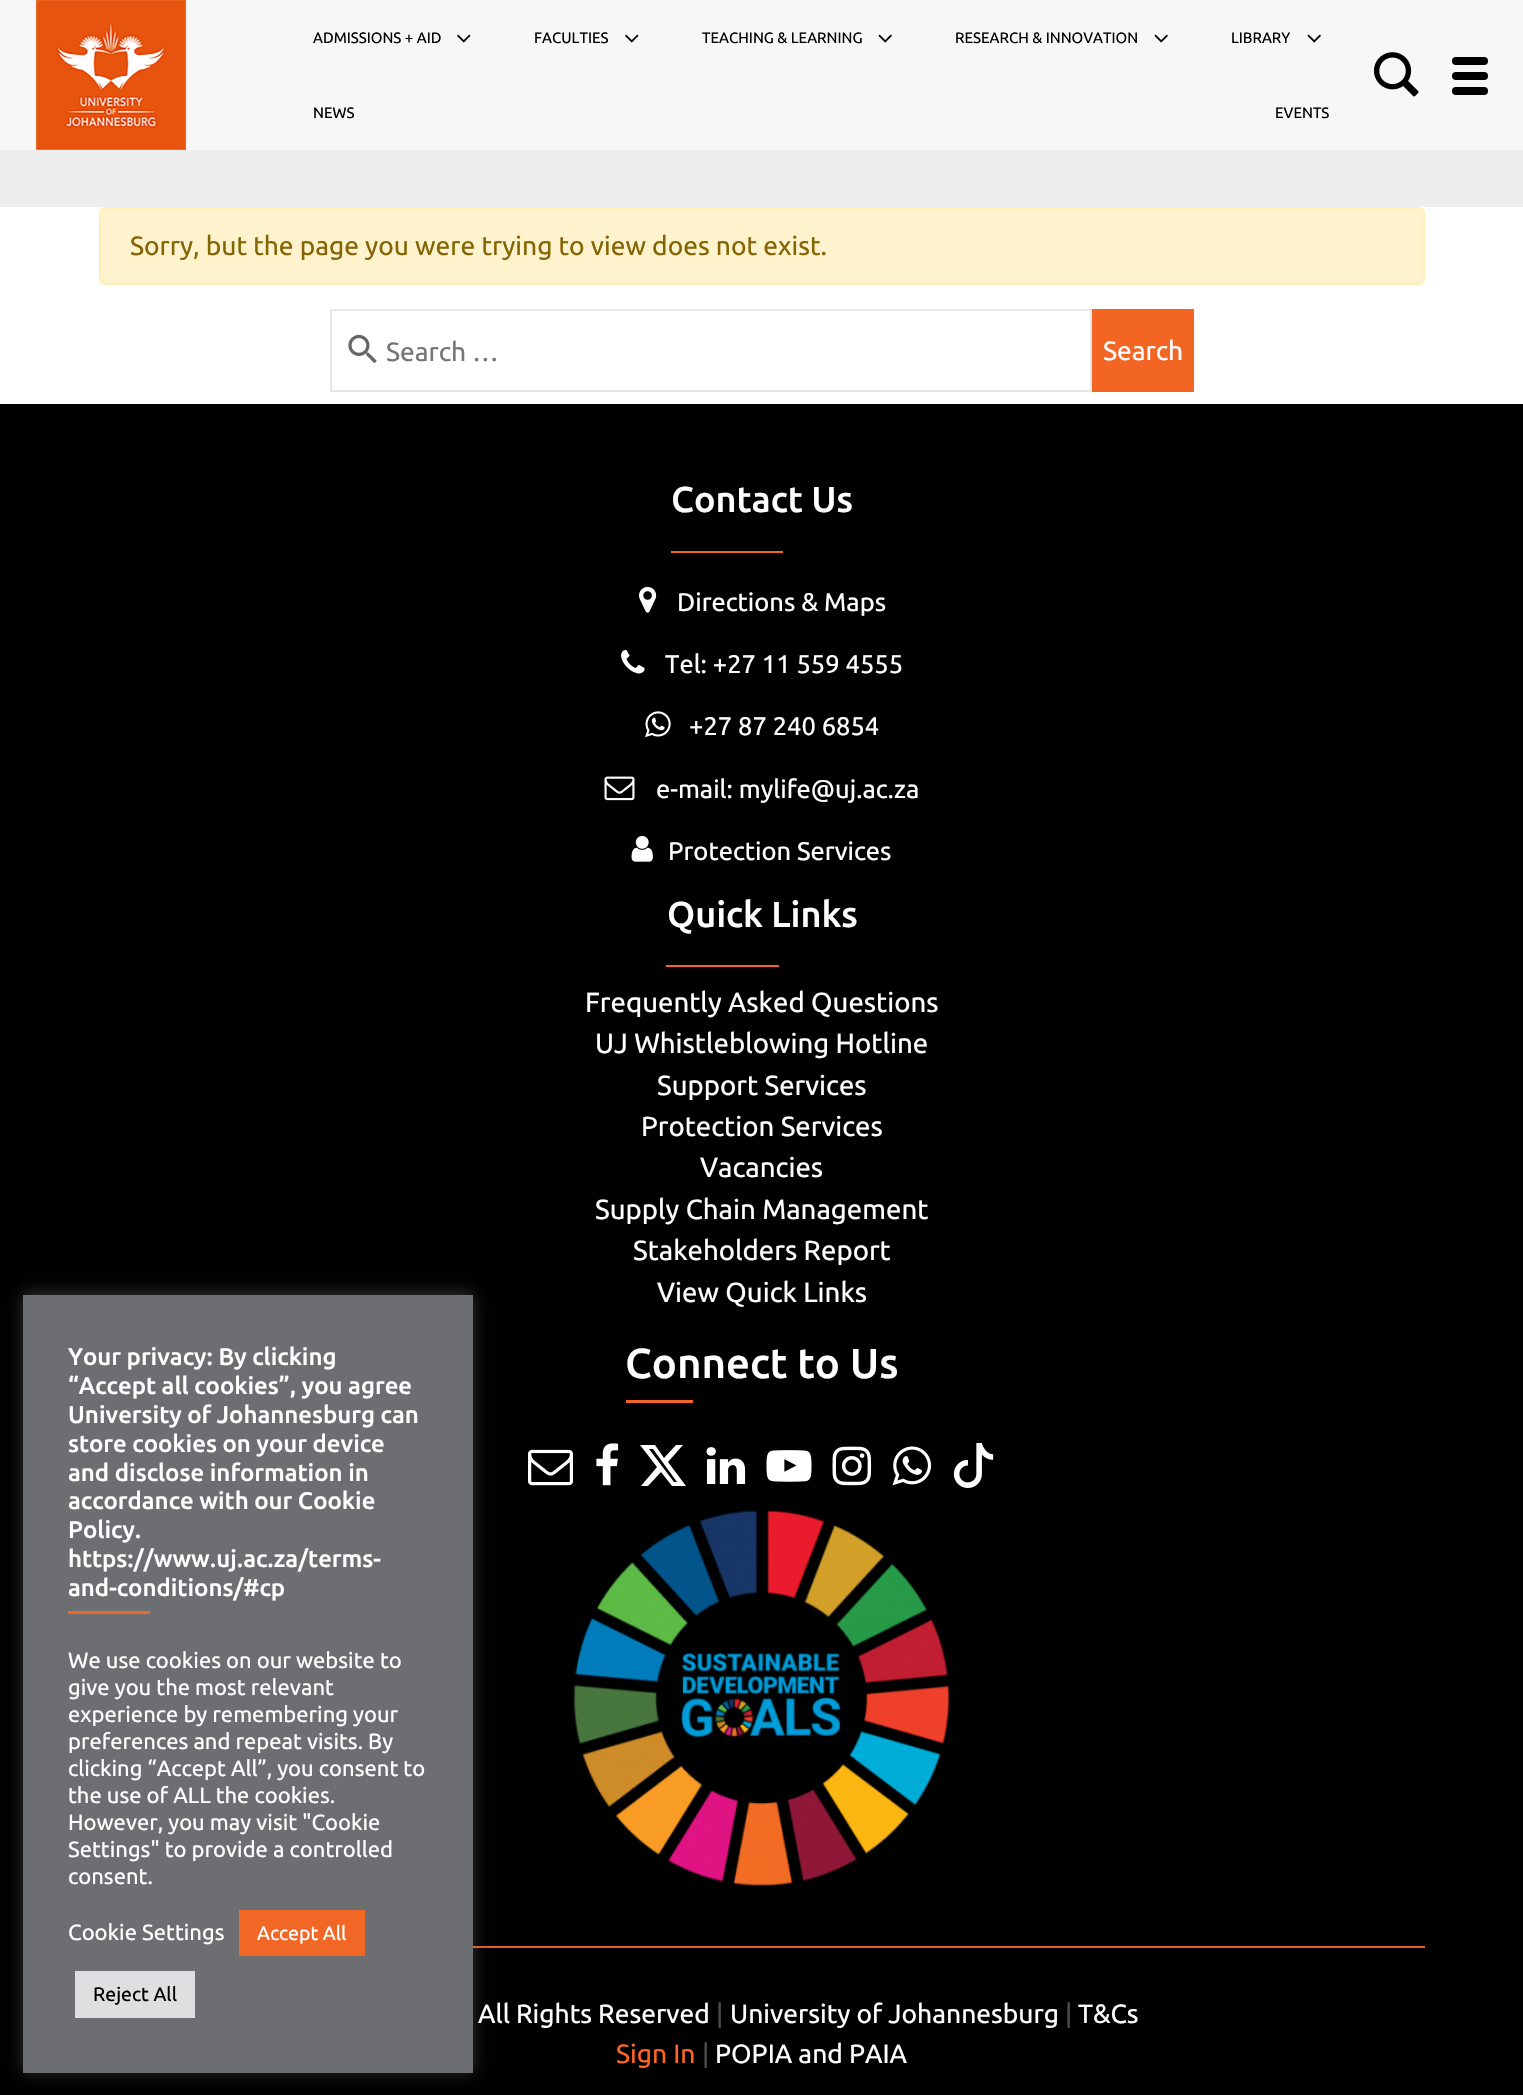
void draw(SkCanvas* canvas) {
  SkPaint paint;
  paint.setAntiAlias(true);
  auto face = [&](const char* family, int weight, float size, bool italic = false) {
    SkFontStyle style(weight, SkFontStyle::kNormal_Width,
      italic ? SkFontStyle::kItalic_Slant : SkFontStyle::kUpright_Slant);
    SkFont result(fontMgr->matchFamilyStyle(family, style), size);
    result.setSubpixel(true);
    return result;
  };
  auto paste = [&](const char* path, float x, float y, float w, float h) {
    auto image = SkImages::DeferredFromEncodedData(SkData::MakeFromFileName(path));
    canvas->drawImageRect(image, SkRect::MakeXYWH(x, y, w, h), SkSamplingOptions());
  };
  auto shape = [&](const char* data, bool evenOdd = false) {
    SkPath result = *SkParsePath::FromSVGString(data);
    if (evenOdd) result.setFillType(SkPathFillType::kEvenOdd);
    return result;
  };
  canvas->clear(0xffffffff);
  paint.setColor(0xfff8f7f7);
  canvas->drawRect(SkRect::MakeXYWH(0, 0, 1523, 150), paint);
  paste("img/1.png", 35, 0, 151, 150);
  paste("img/2.png", 457, 34, 14, 9);
  paste("img/2.png", 625, 34, 14, 9);
  paste("img/3.png", 878, 34, 14, 9);
  paste("img/3.png", 1154, 34, 14, 9);
  paste("img/3.png", 1307, 34, 14, 9);
  paste("img/4.png", 1373, 52, 46, 45);
  paint.setColor(0xff000000);
  canvas->drawRoundRect(SkRect::MakeXYWH(1452, 72, 36, 8), 4, 4, paint);
  canvas->drawRoundRect(SkRect::MakeXYWH(1452, 57, 36, 8), 4, 4, paint);
  canvas->drawRoundRect(SkRect::MakeXYWH(1452, 87, 36, 8), 4, 4, paint);
  paint.setColor(0xffeeeeee);
  canvas->drawRect(SkRect::MakeXYWH(0, 150, 1523, 57), paint);
  paint.setColor(0xfffff3cd);
  canvas->drawRoundRect(SkRect::MakeXYWH(100, 208, 1324, 76), 5, 5, paint);
  paint.setStroke(true);
  paint.setStrokeWidth(2);
  paint.setColor(0xffffeeba);
  canvas->drawRoundRect(SkRect::MakeXYWH(100, 208, 1324, 76), 5, 5, paint);
  paste("img/5.png", 348, 334, 29, 30);
  paint.setColor(0xffe5e6e7);
  canvas->drawRect(SkRect::MakeXYWH(331, 310, 760, 81), paint);
  paint.setStroke(false);
  {
    const struct { float x, y, w, h; SkColor color; } items[] = {
      {1092, 309, 102, 83, 0xfff26522},
      {0, 404, 1523, 1691, 0xff000000},
      {671, 551, 112, 2, 0xfff26522},
    };
    for (auto [x, y, w, h, color] : items) {
      paint.setColor(color);
      canvas->drawRect(SkRect::MakeXYWH(x, y, w, h), paint);
    }
  }
  paste("img/6.png", 639, 586, 18, 27);
  paste("img/7.png", 621, 650, 24, 24);
  paste("img/8.png", 645, 711, 26, 27);
  paste("img/9.png", 604, 776, 31, 25);
  paste("img/10.png", 631, 835, 22, 27);
  canvas->drawRect(SkRect::MakeXYWH(666, 965, 113, 2), paint);
  canvas->drawRect(SkRect::MakeXYWH(626, 1400, 67, 3), paint);
  paste("img/11.png", 528, 1449, 45, 37);
  paste("img/12.png", 596, 1443, 23, 43);
  paint.setColor(0xffffffff);
  canvas->drawPath(shape("M676 1445H683L668 1462L686 1486H672L661 1472L648 1486H641L657 1467L640 1445H655L664 1458ZM674 1482H677L653 1449H649Z"), paint);
  paste("img/13.png", 706, 1447, 40, 37);
  paste("img/14.png", 766, 1450, 46, 32);
  paste("img/15.png", 832, 1446, 40, 40);
  paste("img/16.png", 892, 1446, 40, 40);
  paste("img/17.png", 953, 1443, 41, 45);
  paste("img/18.png", 573, 1510, 377, 376);
  paint.setColor(0xffe65b1f);
  canvas->drawRect(SkRect::MakeXYWH(473, 1946, 952, 2), paint);
  paint.setColor(0x4dacabab);
  paint.setMaskFilter(SkMaskFilter::MakeBlur(kNormal_SkBlurStyle, 7.5f));
  canvas->drawRect(SkRect::MakeXYWH(23, 1293, 450, 779), paint);
  paint.setMaskFilter(nullptr);
  {
    const struct { float x, y, w, h; SkColor color; } items[] = {
      {23, 1295, 450, 778, 0xff6d6e71},
      {68, 1611, 82, 3, 0xfff26522},
      {239, 1910, 126, 46, 0xfff16726},
      {75, 1971, 120, 47, 0xffdedfe0},
    };
    for (auto [x, y, w, h, color] : items) {
      paint.setColor(color);
      canvas->drawRect(SkRect::MakeXYWH(x, y, w, h), paint);
    }
  }
  auto f0 = face("Ubuntu", 400, 15);
  paint.setColor(0xff000000);
  {
    const struct { const char* s; float x, y; } items[] = {
      {"ADMISSIONS + AID", 313, 43},
      {"FACULTIES", 534, 43},
      {"TEACHING & LEARNING", 702, 43},
      {"RESEARCH & INNOVATION", 955, 43},
      {"LIBRARY", 1231, 43},
      {"NEWS", 313, 118},
      {"EVENTS", 1275, 118},
    };
    for (auto [s, x, y] : items) {
      canvas->drawString(s, x, y, f0, paint);
    }
  }
  auto f1 = face("Ubuntu", 400, 26.4f);
  paint.setColor(0xff856404);
  canvas->drawString("Sorry, but the page you were trying to view does not exist.", 130, 255, f1, paint);
  paint.setColor(0xff757575);
  canvas->drawString("Search …", 386, 361, f1, paint);
  paint.setColor(0xffffffff);
  canvas->drawString("Search", 1103, 360, f1, paint);
  auto f2 = face("Ubuntu", 500, 36);
  canvas->drawString("Contact Us", 671, 512, f2, paint);
  auto f3 = face("Ubuntu", 400, 25.5f);
  {
    const struct { const char* s; float x, y; } items[] = {
      {"Directions & Maps", 677, 611},
      {"Tel: +27 11 559 4555", 665, 673},
      {"+27 87 240 6854", 689, 735},
      {"e-mail: mylife@uj.ac.za", 656, 798},
      {"Protection Services", 668, 860},
    };
    for (auto [s, x, y] : items) {
      canvas->drawString(s, x, y, f3, paint);
    }
  }
  canvas->drawString("Quick Links", 667, 927, f2, paint);
  auto f4 = face("Ubuntu", 400, 27.6f);
  {
    const struct { const char* s; float x, y; } items[] = {
      {"Frequently Asked Questions", 585, 1012},
      {"UJ Whistleblowing Hotline", 595, 1053},
      {"Support Services", 657, 1095},
      {"Protection Services", 641, 1136},
      {"Vacancies", 700, 1177},
      {"Supply Chain Management", 595, 1219},
      {"Stakeholders Report", 633, 1260},
      {"View Quick Links", 657, 1302},
    };
    for (auto [s, x, y] : items) {
      canvas->drawString(s, x, y, f4, paint);
    }
  }
  auto f5 = face("Ubuntu", 500, 42);
  canvas->drawString("Connect to Us", 625, 1378, f5, paint);
  auto f6 = face("Ubuntu", 500, 24);
  {
    const struct { const char* s; float x, y; } items[] = {
      {"Your privacy: By clicking", 68, 1365},
      {"“Accept all cookies”, you agree", 68, 1394},
      {"University of Johannesburg can", 68, 1423},
      {"store cookies on your device", 68, 1452},
      {"and disclose information in", 68, 1481},
      {"accordance with our Cookie", 68, 1509},
      {"Policy.", 68, 1538},
      {"https://www.uj.ac.za/terms-", 68, 1567},
      {"and-conditions/#cp", 68, 1596},
    };
    for (auto [s, x, y] : items) {
      canvas->drawString(s, x, y, f6, paint);
    }
  }
  auto f7 = face("Ubuntu", 400, 22);
  {
    const struct { const char* s; float x, y; } items[] = {
      {"We use cookies on our website to", 68, 1668},
      {"give you the most relevant", 68, 1695},
      {"experience by remembering your", 68, 1722},
      {"preferences and repeat visits. By", 68, 1749},
      {"clicking “Accept All”, you consent to", 68, 1776},
      {"the use of ALL the cookies.", 68, 1803},
      {"However, you may visit \"Cookie", 68, 1830},
      {"Settings\" to provide a controlled", 68, 1857},
      {"consent.", 68, 1884},
      {"Cookie Settings", 68, 1940},
    };
    for (auto [s, x, y] : items) {
      canvas->drawString(s, x, y, f7, paint);
    }
  }
  auto f8 = face("Ubuntu", 400, 19.5f);
  canvas->drawString("Accept All", 257, 1940, f8, paint);
  paint.setColor(0xff000000);
  canvas->drawString("Reject All", 93, 2001, f8, paint);
  paint.setColor(0xffffffff);
  canvas->drawString("All Rights Reserved", 478, 2023, f1, paint);
  paint.setColor(0xff4d4d4d);
  canvas->drawString("|", 716, 2023, f1, paint);
  paint.setColor(0xffffffff);
  canvas->drawString("University of Johannesburg", 730, 2023, f1, paint);
  paint.setColor(0xff4d4d4d);
  canvas->drawString("|", 1065, 2023, f1, paint);
  paint.setColor(0xffffffff);
  canvas->drawString("T&Cs", 1078, 2023, f1, paint);
  paint.setColor(0xffff6522);
  canvas->drawString("Sign In", 616, 2063, f1, paint);
  paint.setColor(0xff4d4d4d);
  canvas->drawString("|", 702, 2063, f1, paint);
  paint.setColor(0xffffffff);
  canvas->drawString("POPIA and PAIA", 715, 2063, f1, paint);
}
